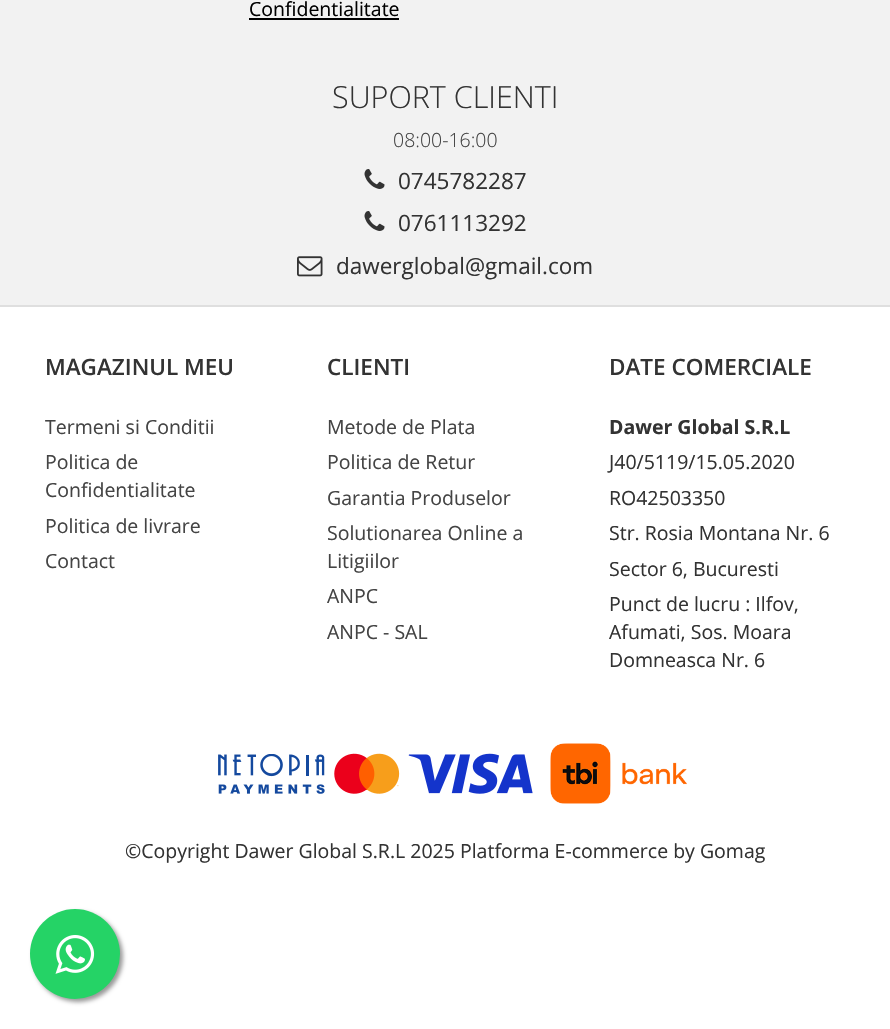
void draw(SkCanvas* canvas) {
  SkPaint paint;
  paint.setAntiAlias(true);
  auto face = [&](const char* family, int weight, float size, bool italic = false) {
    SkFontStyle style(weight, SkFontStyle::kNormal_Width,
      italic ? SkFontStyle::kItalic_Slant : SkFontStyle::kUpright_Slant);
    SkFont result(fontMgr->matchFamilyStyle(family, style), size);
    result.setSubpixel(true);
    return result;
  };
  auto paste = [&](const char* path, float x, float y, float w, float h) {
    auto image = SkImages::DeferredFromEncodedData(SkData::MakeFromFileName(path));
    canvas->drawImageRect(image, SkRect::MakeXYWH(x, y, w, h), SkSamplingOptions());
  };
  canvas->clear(0xffffffff);
  {
    const struct { float x, y, w, h; SkColor color; } items[] = {
      {0, 0, 890, 305, 0xfff2f2f2},
      {0, 305, 890, 2, 0xffdfdfdf},
      {249, 18, 150, 2, 0xff000000},
    };
    for (auto [x, y, w, h, color] : items) {
      paint.setColor(color);
      canvas->drawRect(SkRect::MakeXYWH(x, y, w, h), paint);
    }
  }
  paste("img/1.png", 364, 169, 21, 20);
  paste("img/1.png", 364, 211, 21, 20);
  paste("img/2.png", 297, 256, 26, 21);
  paste("img/3.png", 218, 753, 315, 41);
  paste("img/4.png", 550, 743, 137, 61);
  paint.setColor(0xff999999);
  paint.setMaskFilter(SkMaskFilter::MakeBlur(kNormal_SkBlurStyle, 2));
  canvas->drawRoundRect(SkRect::MakeXYWH(33, 912, 90, 90), 45, 45, paint);
  paint.setMaskFilter(nullptr);
  paint.setColor(0xff25d366);
  canvas->drawCircle(75, 954, 45, paint);
  paste("img/5.png", 55, 935, 40, 39);
  auto f0 = face("Open Sans", 400, 19.5f);
  paint.setColor(0xff000000);
  canvas->drawString("Confidentialitate", 249, 16, f0, paint);
  auto f1 = face("Open Sans", 300, 30.5f);
  paint.setColor(0xff333333);
  canvas->drawString("SUPORT CLIENTI", 332, 108, f1, paint);
  auto f2 = face("Open Sans", 300, 19.5f);
  paint.setColor(0xff444444);
  canvas->drawString("08:00-16:00", 393, 147, f2, paint);
  auto f3 = face("Open Sans", 400, 22.5f);
  paint.setColor(0xff333333);
  {
    const struct { const char* s; float x, y; } items[] = {
      {"0745782287", 398, 189},
      {"0761113292", 398, 231},
      {"dawerglobal@gmail.com", 336, 274},
    };
    for (auto [s, x, y] : items) {
      canvas->drawString(s, x, y, f3, paint);
    }
  }
  auto f4 = face("Open Sans", 600, 22.5f);
  canvas->drawString("MAGAZINUL MEU", 45, 375, f4, paint);
  paint.setColor(0xff444444);
  {
    const struct { const char* s; float x, y; } items[] = {
      {"Termeni si Conditii", 45, 434},
      {"Politica de", 45, 469},
      {"Confidentialitate", 45, 497},
      {"Politica de livrare", 45, 533},
      {"Contact", 45, 568},
    };
    for (auto [s, x, y] : items) {
      canvas->drawString(s, x, y, f0, paint);
    }
  }
  paint.setColor(0xff333333);
  canvas->drawString("CLIENTI", 327, 375, f4, paint);
  paint.setColor(0xff444444);
  {
    const struct { const char* s; float x, y; } items[] = {
      {"Metode de Plata", 327, 434},
      {"Politica de Retur", 327, 469},
      {"Garantia Produselor", 327, 505},
      {"Solutionarea Online a", 327, 540},
      {"Litigiilor", 327, 568},
      {"ANPC", 327, 603},
      {"ANPC - SAL", 327, 639},
    };
    for (auto [s, x, y] : items) {
      canvas->drawString(s, x, y, f0, paint);
    }
  }
  paint.setColor(0xff333333);
  canvas->drawString("DATE COMERCIALE", 609, 375, f4, paint);
  auto f5 = face("Open Sans", 700, 19.5f);
  canvas->drawString("Dawer Global S.R.L", 609, 434, f5, paint);
  {
    const struct { const char* s; float x, y; } items[] = {
      {"J40/5119/15.05.2020", 609, 469},
      {"RO42503350", 609, 505},
      {"Str. Rosia Montana Nr. 6", 609, 540},
      {"Sector 6, Bucuresti", 609, 576},
      {"Punct de lucru : Ilfov,", 609, 611},
      {"Afumati, Sos. Moara", 609, 639},
      {"Domneasca Nr. 6", 609, 667},
      {"©Copyright Dawer Global S.R.L 2025 Platforma E-commerce by Gomag", 125, 858},
    };
    for (auto [s, x, y] : items) {
      canvas->drawString(s, x, y, f0, paint);
    }
  }
}
